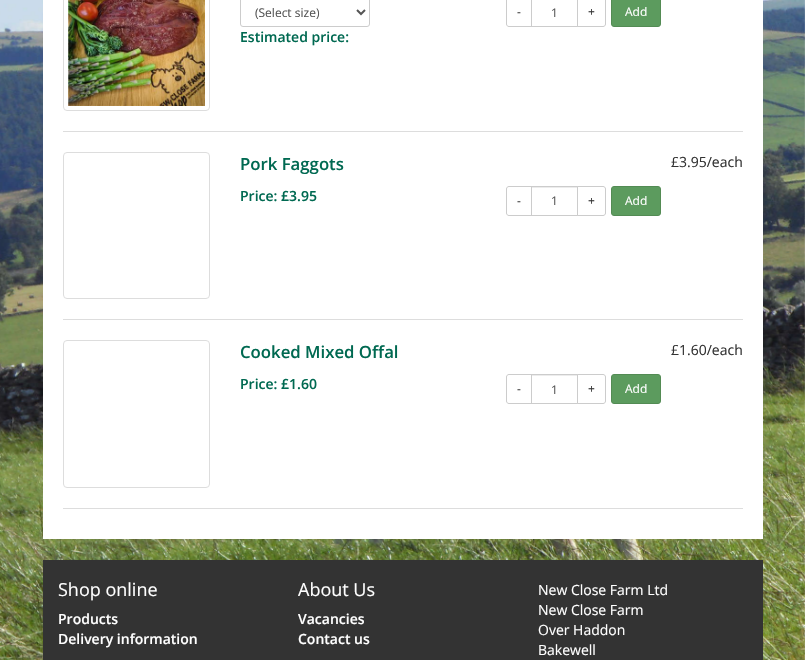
void draw(SkCanvas* canvas) {
  SkPaint paint;
  paint.setAntiAlias(true);
  auto face = [&](const char* family, int weight, float size, bool italic = false) {
    SkFontStyle style(weight, SkFontStyle::kNormal_Width,
      italic ? SkFontStyle::kItalic_Slant : SkFontStyle::kUpright_Slant);
    SkFont result(fontMgr->matchFamilyStyle(family, style), size);
    result.setSubpixel(true);
    return result;
  };
  auto paste = [&](const char* path, float x, float y, float w, float h) {
    auto image = SkImages::DeferredFromEncodedData(SkData::MakeFromFileName(path));
    canvas->drawImageRect(image, SkRect::MakeXYWH(x, y, w, h), SkSamplingOptions());
  };
  auto shape = [&](const char* data, bool evenOdd = false) {
    SkPath result = *SkParsePath::FromSVGString(data);
    if (evenOdd) result.setFillType(SkPathFillType::kEvenOdd);
    return result;
  };
  canvas->clear(0xffffffff);
  paste("img/1.png", 0, 0, 805, 660);
  paint.setColor(0xffffffff);
  canvas->drawRect(SkRect::MakeXYWH(43, 0, 720, 539), paint);
  paint.setStroke(true);
  paint.setStrokeWidth(1);
  paint.setColor(0xffdddddd);
  canvas->drawRoundRect(SkRect::MakeXYWH(63.5f, -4.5f, 146, 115), 3.5f, 3.5f, paint);
  paste("img/2.png", 68, 0, 137, 106);
  paint.setColor(0xffcccccc);
  canvas->drawRoundRect(SkRect::MakeXYWH(240.5f, -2.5f, 129, 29), 2.5f, 2.5f, paint);
  paint.setStrokeWidth(2);
  paint.setColor(0xff555555);
  canvas->drawPath(shape("M357 10L361 14L365 10"), paint);
  paint.setStrokeWidth(1);
  paint.setColor(0xffcccccc);
  canvas->drawPath(shape("M509-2.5H531.5V26.5H509C507.5 26.5 506.5 25.5 506.5 24V0C506.5-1.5 507.5-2.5 509-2.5Z"), paint);
  canvas->drawRect(SkRect::MakeXYWH(531.5f, -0.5f, 46, 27), paint);
  paint.setStroke(false);
  paint.setColor(0xffffffff);
  canvas->drawPath(shape("M577.5-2.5H603C604.5-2.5 605.5-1.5 605.5 0V24C605.5 25.5 604.5 26.5 603 26.5H577.5Z"), paint);
  paint.setStroke(true);
  paint.setColor(0xffcccccc);
  canvas->drawPath(shape("M577.5-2.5H603C604.5-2.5 605.5-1.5 605.5 0V24C605.5 25.5 604.5 26.5 603 26.5H577.5Z"), paint);
  paint.setStroke(false);
  paint.setColor(0xff5c9b5e);
  canvas->drawRoundRect(SkRect::MakeXYWH(611.5f, -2.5f, 49, 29), 2.5f, 2.5f, paint);
  paint.setStroke(true);
  paint.setColor(0xff538b54);
  canvas->drawRoundRect(SkRect::MakeXYWH(611.5f, -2.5f, 49, 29), 2.5f, 2.5f, paint);
  paint.setStroke(false);
  paint.setColor(0xffdddddd);
  canvas->drawRect(SkRect::MakeXYWH(63, 131, 680, 1), paint);
  paint.setStroke(true);
  canvas->drawRoundRect(SkRect::MakeXYWH(63.5f, 152.5f, 146, 146), 3.5f, 3.5f, paint);
  paint.setColor(0xffcccccc);
  canvas->drawPath(shape("M509 186.5H531.5V215.5H509C507.5 215.5 506.5 214.5 506.5 213V189C506.5 187.5 507.5 186.5 509 186.5Z"), paint);
  paint.setStroke(false);
  paint.setColor(0xffececec);
  canvas->drawRect(SkRect::MakeXYWH(532, 187, 45, 1), paint);
  paint.setStroke(true);
  paint.setColor(0xffcccccc);
  canvas->drawRect(SkRect::MakeXYWH(531.5f, 186.5f, 46, 29), paint);
  paint.setStroke(false);
  paint.setColor(0xffffffff);
  canvas->drawPath(shape("M577.5 186.5H603C604.5 186.5 605.5 187.5 605.5 189V213C605.5 214.5 604.5 215.5 603 215.5H577.5Z"), paint);
  paint.setStroke(true);
  paint.setColor(0xffcccccc);
  canvas->drawPath(shape("M577.5 186.5H603C604.5 186.5 605.5 187.5 605.5 189V213C605.5 214.5 604.5 215.5 603 215.5H577.5Z"), paint);
  paint.setStroke(false);
  paint.setColor(0xff5c9b5e);
  canvas->drawRoundRect(SkRect::MakeXYWH(611.5f, 186.5f, 49, 29), 2.5f, 2.5f, paint);
  paint.setStroke(true);
  paint.setColor(0xff538b54);
  canvas->drawRoundRect(SkRect::MakeXYWH(611.5f, 186.5f, 49, 29), 2.5f, 2.5f, paint);
  paint.setStroke(false);
  paint.setColor(0xffdddddd);
  canvas->drawRect(SkRect::MakeXYWH(63, 319, 680, 1), paint);
  paint.setStroke(true);
  canvas->drawRoundRect(SkRect::MakeXYWH(63.5f, 340.5f, 146, 147), 3.5f, 3.5f, paint);
  paint.setColor(0xffcccccc);
  canvas->drawPath(shape("M509 374.5H531.5V403.5H509C507.5 403.5 506.5 402.5 506.5 401V377C506.5 375.5 507.5 374.5 509 374.5Z"), paint);
  paint.setStroke(false);
  paint.setColor(0xffececec);
  canvas->drawRect(SkRect::MakeXYWH(532, 375, 45, 1), paint);
  paint.setStroke(true);
  paint.setColor(0xffcccccc);
  canvas->drawRect(SkRect::MakeXYWH(531.5f, 374.5f, 46, 29), paint);
  paint.setStroke(false);
  paint.setColor(0xffffffff);
  canvas->drawPath(shape("M577.5 374.5H603C604.5 374.5 605.5 375.5 605.5 377V401C605.5 402.5 604.5 403.5 603 403.5H577.5Z"), paint);
  paint.setStroke(true);
  paint.setColor(0xffcccccc);
  canvas->drawPath(shape("M577.5 374.5H603C604.5 374.5 605.5 375.5 605.5 377V401C605.5 402.5 604.5 403.5 603 403.5H577.5Z"), paint);
  paint.setStroke(false);
  paint.setColor(0xff5c9b5e);
  canvas->drawRoundRect(SkRect::MakeXYWH(611.5f, 374.5f, 49, 29), 2.5f, 2.5f, paint);
  paint.setStroke(true);
  paint.setColor(0xff538b54);
  canvas->drawRoundRect(SkRect::MakeXYWH(611.5f, 374.5f, 49, 29), 2.5f, 2.5f, paint);
  paint.setStroke(false);
  paint.setColor(0xffdddddd);
  canvas->drawRect(SkRect::MakeXYWH(63, 508, 680, 1), paint);
  paint.setColor(0xff333333);
  canvas->drawRect(SkRect::MakeXYWH(43, 560, 720, 100), paint);
  auto f0 = face("Open Sans", 400, 12);
  paint.setColor(0xff555555);
  canvas->drawString("(Select size)", 255, 17, f0, paint);
  auto f1 = face("Open Sans", 600, 14);
  paint.setColor(0xff006951);
  canvas->drawString("Estimated price:", 240, 42, f1, paint);
  paint.setColor(0xff333333);
  canvas->drawString("-", 517, 16, f0, paint);
  paint.setColor(0xff555555);
  canvas->drawString("1", 551, 17, f0, paint);
  paint.setColor(0xff333333);
  canvas->drawString("+", 588, 16, f0, paint);
  paint.setColor(0xffffffff);
  canvas->drawString("Add", 625, 16, f0, paint);
  auto f2 = face("Open Sans", 600, 16.75f);
  paint.setColor(0xff006951);
  canvas->drawString("Pork Faggots", 240, 170, f2, paint);
  auto f3 = face("Open Sans", 400, 14);
  paint.setColor(0xff333333);
  canvas->drawString("£3.95/each", 671, 167, f3, paint);
  paint.setColor(0xff006951);
  canvas->drawString("Price: £3.95", 240, 201, f1, paint);
  paint.setColor(0xff333333);
  canvas->drawString("-", 517, 205, f0, paint);
  paint.setColor(0xff555555);
  canvas->drawString("1", 551, 205, f0, paint);
  paint.setColor(0xff333333);
  canvas->drawString("+", 588, 205, f0, paint);
  paint.setColor(0xffffffff);
  canvas->drawString("Add", 625, 205, f0, paint);
  paint.setColor(0xff006951);
  canvas->drawString("Cooked Mixed Offal", 240, 358, f2, paint);
  paint.setColor(0xff333333);
  canvas->drawString("£1.60/each", 671, 355, f3, paint);
  paint.setColor(0xff006951);
  canvas->drawString("Price: £1.60", 240, 389, f1, paint);
  paint.setColor(0xff333333);
  canvas->drawString("-", 517, 393, f0, paint);
  paint.setColor(0xff555555);
  canvas->drawString("1", 551, 394, f0, paint);
  paint.setColor(0xff333333);
  canvas->drawString("+", 588, 393, f0, paint);
  paint.setColor(0xffffffff);
  canvas->drawString("Add", 625, 393, f0, paint);
  auto f4 = face("Open Sans", 400, 18);
  canvas->drawString("Shop online", 58, 596, f4, paint);
  canvas->drawString("Products", 58, 624, f1, paint);
  canvas->drawString("Delivery information", 58, 644, f1, paint);
  canvas->drawString("About Us", 298, 596, f4, paint);
  canvas->drawString("Vacancies", 298, 624, f1, paint);
  canvas->drawString("Contact us", 298, 644, f1, paint);
  {
    const struct { const char* s; float x, y; } items[] = {
      {"New Close Farm Ltd", 538, 595},
      {"New Close Farm", 538, 615},
      {"Over Haddon", 538, 635},
      {"Bakewell", 538, 655},
    };
    for (auto [s, x, y] : items) {
      canvas->drawString(s, x, y, f3, paint);
    }
  }
}
